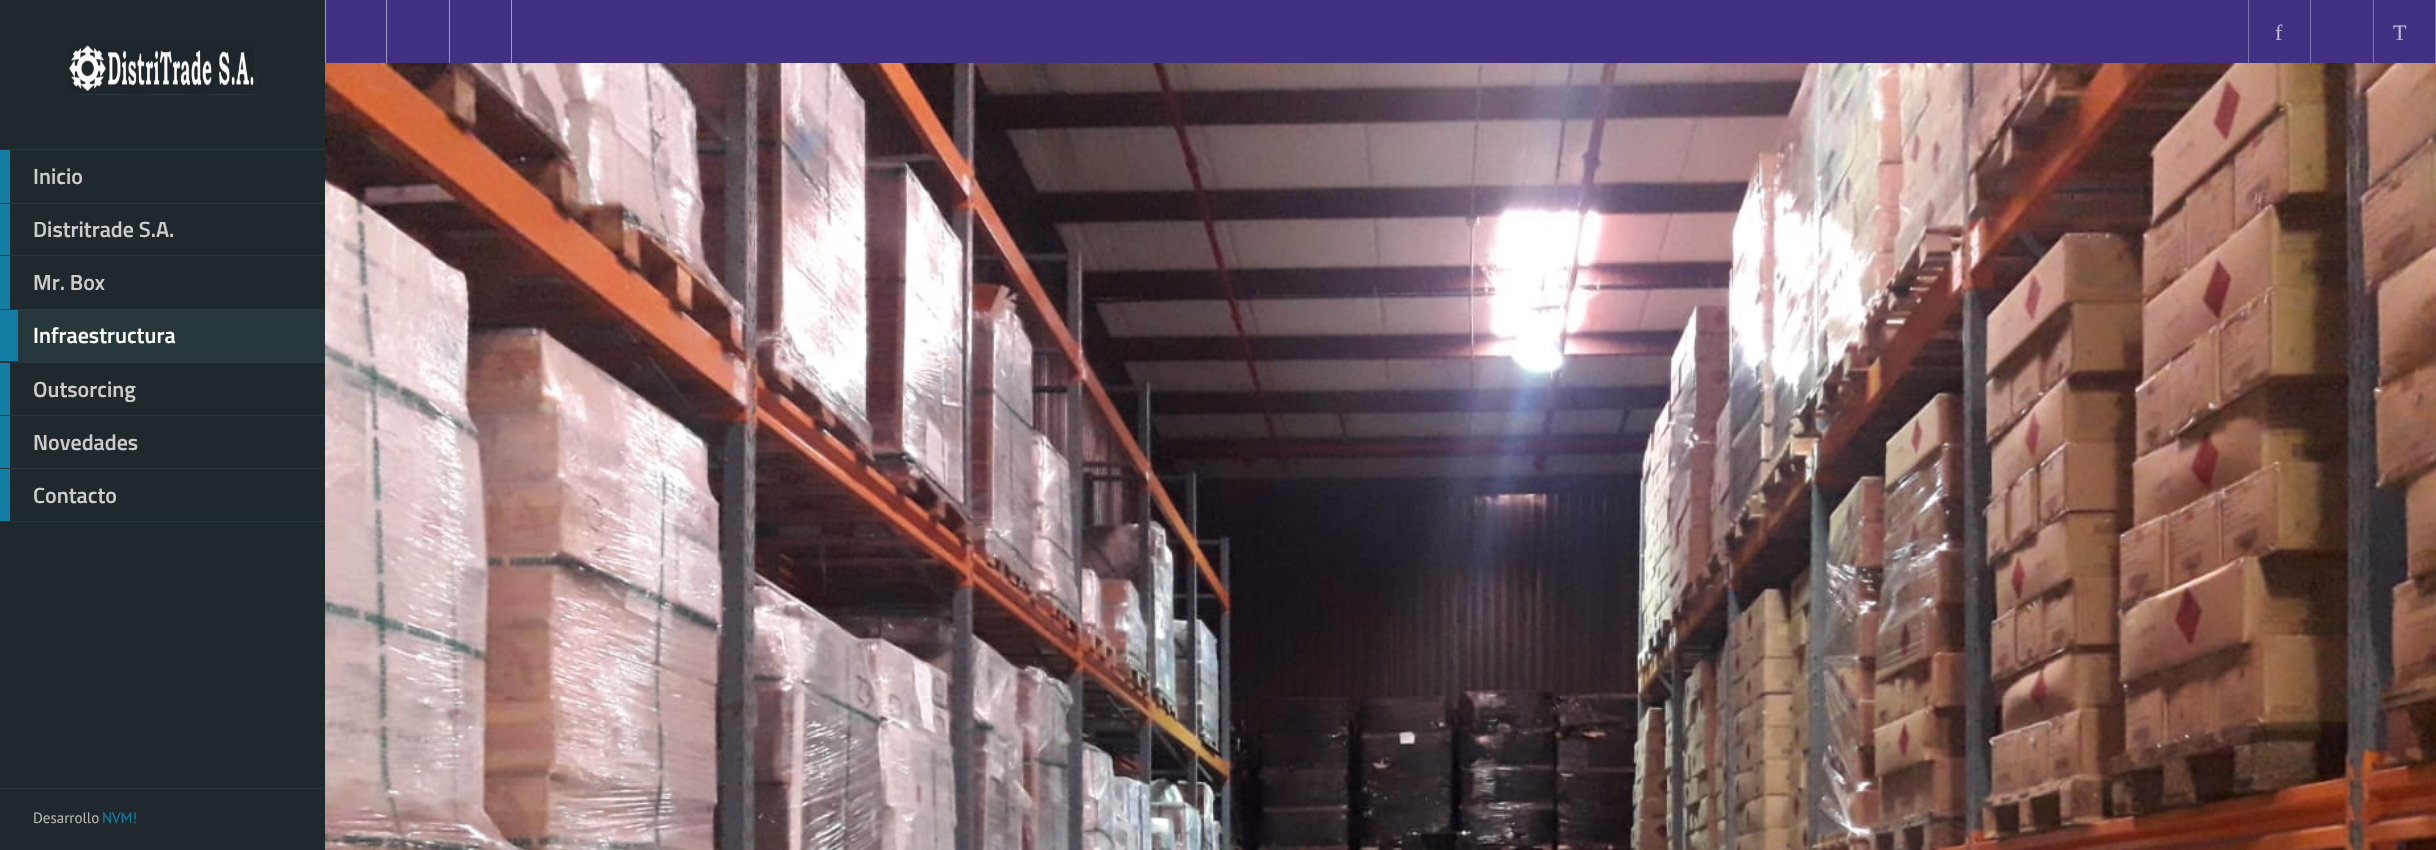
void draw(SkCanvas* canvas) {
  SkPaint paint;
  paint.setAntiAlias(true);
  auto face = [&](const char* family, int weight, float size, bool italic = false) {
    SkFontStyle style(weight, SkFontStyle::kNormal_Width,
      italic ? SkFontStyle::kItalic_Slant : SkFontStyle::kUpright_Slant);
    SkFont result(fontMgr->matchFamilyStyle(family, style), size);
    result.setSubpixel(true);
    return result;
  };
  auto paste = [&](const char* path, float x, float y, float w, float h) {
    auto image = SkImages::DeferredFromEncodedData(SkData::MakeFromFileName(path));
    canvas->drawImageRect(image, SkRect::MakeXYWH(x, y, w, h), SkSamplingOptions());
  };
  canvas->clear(0xffffffff);
  {
    const struct { float x, y, w, h; SkColor color; } items[] = {
      {326, 0, 2109, 63, 0xff423082},
      {386, 0, 1, 63, 0xffa198c1},
      {325, 0, 1, 63, 0xffa198c1},
      {449, 0, 1, 63, 0xffa198c1},
      {511, 0, 1, 63, 0xffa198c1},
      {2248, 0, 1, 63, 0xff8175ac},
      {2310, 0, 1, 63, 0xff8175ac},
      {2373, 0, 1, 63, 0xff8175ac},
      {2435, 0, 1, 63, 0xff8175ac},
    };
    for (auto [x, y, w, h, color] : items) {
      paint.setColor(color);
      canvas->drawRect(SkRect::MakeXYWH(x, y, w, h), paint);
    }
  }
  paste("img/1.png", 325, 63, 2111, 787);
  paint.setColor(0xff1f282d);
  canvas->drawRect(SkRect::MakeXYWH(0, 0, 325, 850), paint);
  paste("img/2.png", 69, 45, 188, 50);
  {
    const struct { float x, y, w, h; SkColor color; } items[] = {
      {0, 149, 325, 1, 0xff27373c},
      {0, 203, 325, 1, 0xff27373c},
      {0, 150, 10, 53, 0xff147da3},
      {0, 255, 325, 1, 0xff27373c},
      {0, 204, 10, 51, 0xff147da3},
      {0, 309, 325, 54, 0xff27373c},
      {0, 256, 10, 53, 0xff147da3},
      {0, 310, 18, 51, 0xff147da3},
      {0, 415, 325, 1, 0xff27373c},
      {0, 363, 10, 52, 0xff147da3},
      {0, 468, 325, 1, 0xff27373c},
      {0, 416, 10, 52, 0xff147da3},
      {0, 521, 325, 1, 0xff27373c},
      {0, 469, 10, 52, 0xff147da3},
      {0, 788, 325, 1, 0xff27373c},
    };
    for (auto [x, y, w, h, color] : items) {
      paint.setColor(color);
      canvas->drawRect(SkRect::MakeXYWH(x, y, w, h), paint);
    }
  }
  auto f0 = face("Liberation Serif", 400, 22);
  paint.setColor(0xffbfb9d5);
  canvas->drawString("f", 2275, 40, f0, paint);
  canvas->drawString("T", 2393, 40, f0, paint);
  auto f1 = face("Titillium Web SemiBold", 600, 22);
  paint.setColor(0xffcccccc);
  {
    const struct { const char* s; float x, y; } items[] = {
      {"Inicio", 33, 184},
      {"Distritrade S.A.", 33, 237},
      {"Mr. Box", 33, 290},
    };
    for (auto [s, x, y] : items) {
      canvas->drawString(s, x, y, f1, paint);
    }
  }
  paint.setColor(0xffffffff);
  canvas->drawString("Infraestructura", 33, 343, f1, paint);
  paint.setColor(0xffcccccc);
  {
    const struct { const char* s; float x, y; } items[] = {
      {"Outsorcing", 33, 397},
      {"Novedades", 33, 450},
      {"Contacto", 33, 503},
    };
    for (auto [s, x, y] : items) {
      canvas->drawString(s, x, y, f1, paint);
    }
  }
  auto f2 = face("PT Sans", 400, 15);
  paint.setColor(0xffb5b5b5);
  canvas->drawString("Desarrollo", 33, 823, f2, paint);
  paint.setColor(0xff147da3);
  canvas->drawString("NVM!", 102, 823, f2, paint);
}
